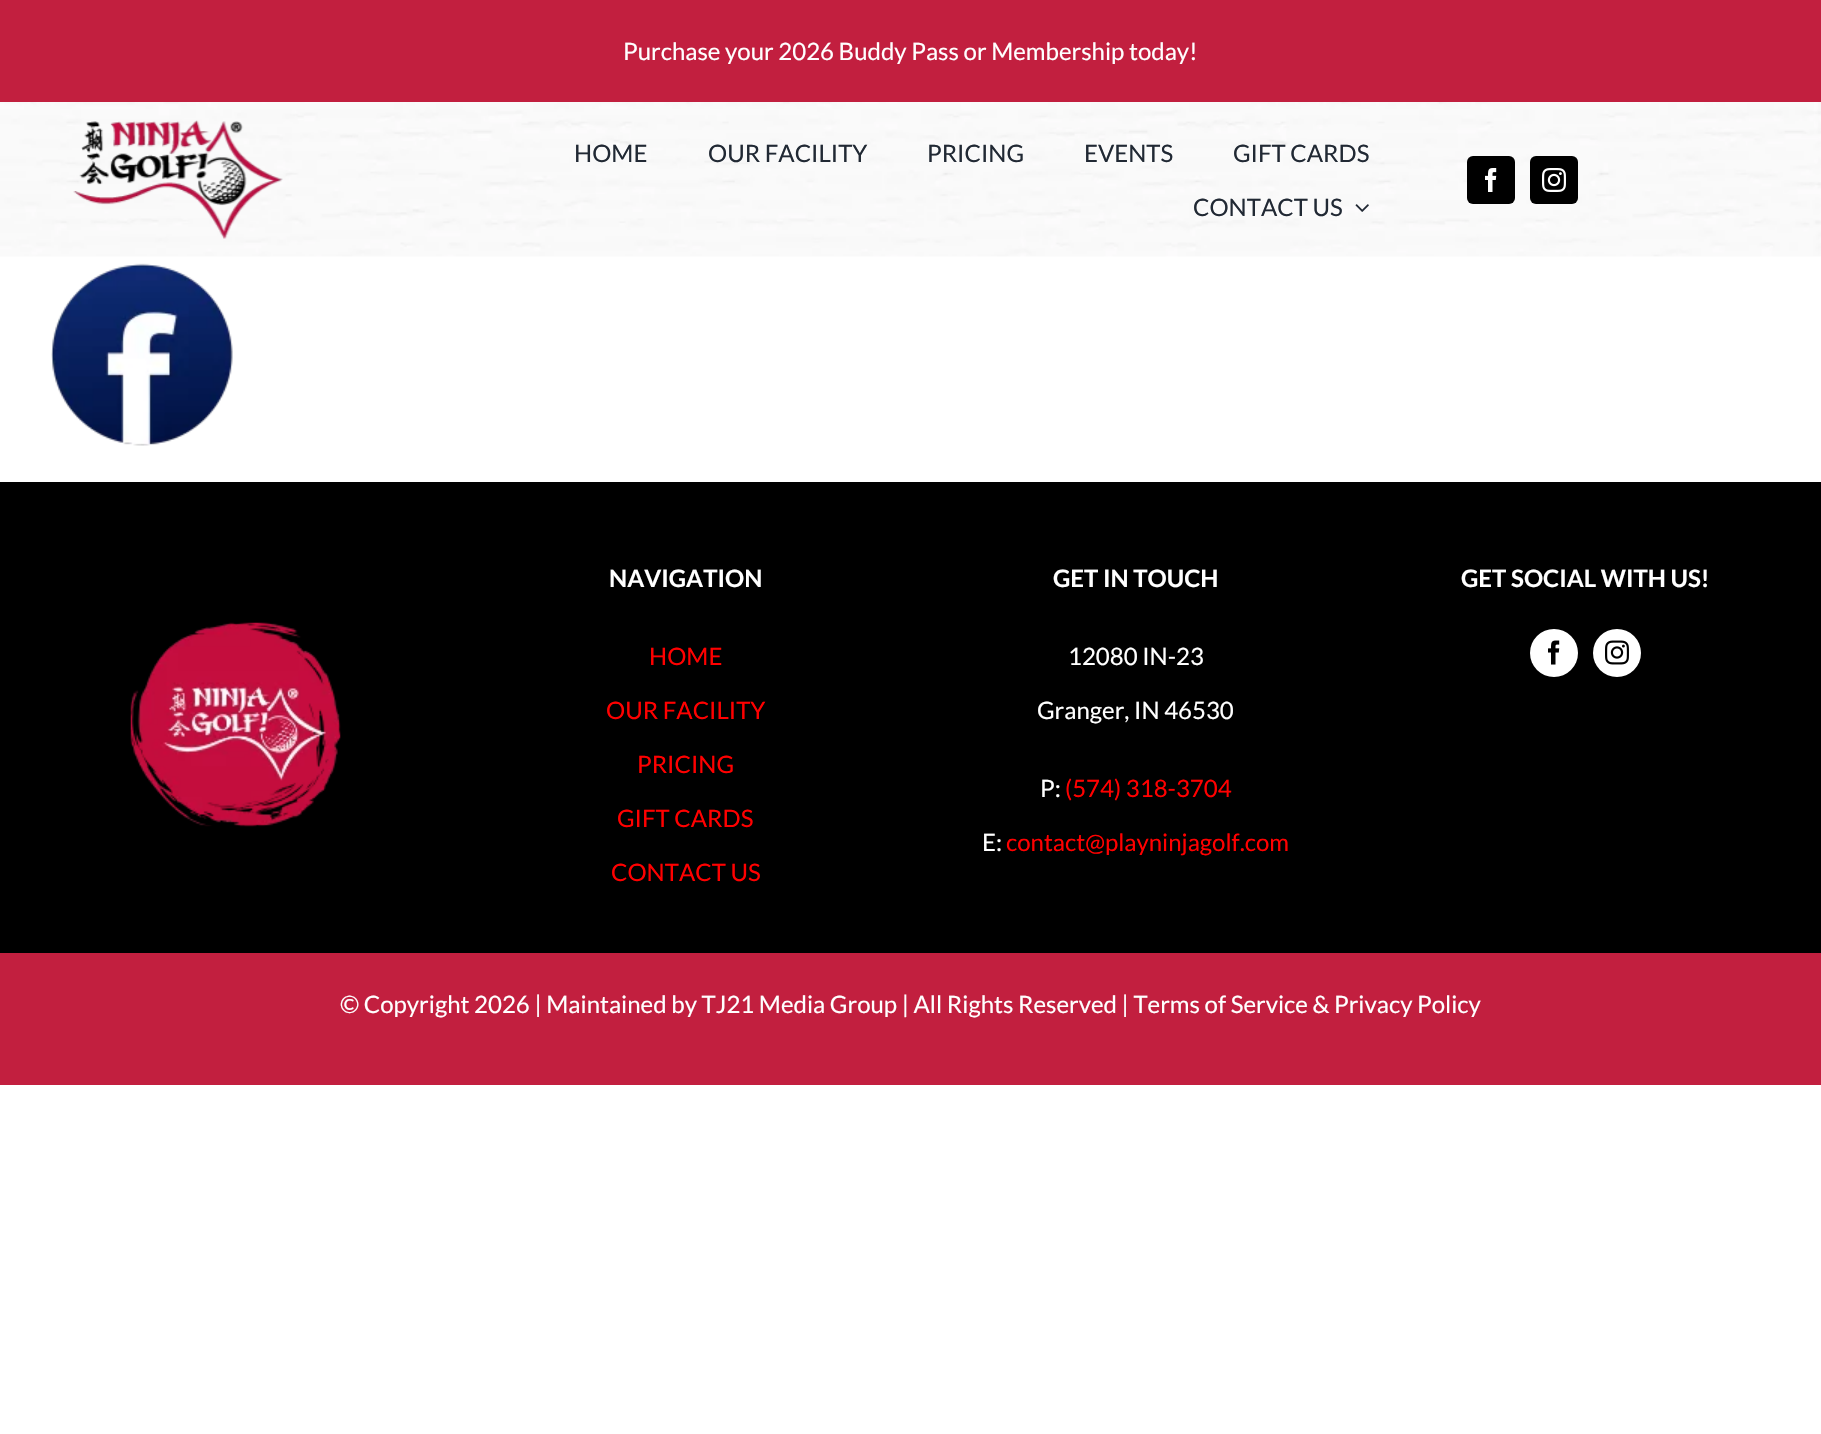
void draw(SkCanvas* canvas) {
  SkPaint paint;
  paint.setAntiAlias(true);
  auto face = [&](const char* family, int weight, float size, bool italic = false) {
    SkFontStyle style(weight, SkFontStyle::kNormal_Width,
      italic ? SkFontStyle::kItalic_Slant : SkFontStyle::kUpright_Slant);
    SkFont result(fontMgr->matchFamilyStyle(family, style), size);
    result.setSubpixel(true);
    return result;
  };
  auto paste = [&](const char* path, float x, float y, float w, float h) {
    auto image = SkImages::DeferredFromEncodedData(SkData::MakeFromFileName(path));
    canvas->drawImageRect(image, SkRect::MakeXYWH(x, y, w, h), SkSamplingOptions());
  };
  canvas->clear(0xffffffff);
  paint.setColor(0xffc21f3f);
  canvas->drawRect(SkRect::MakeXYWH(0, 0, 1821, 102), paint);
  paste("img/1.png", 0, 102, 1821, 155);
  paste("img/2.png", 73, 120, 210, 119);
  paste("img/3.png", 1355, 204, 14, 8);
  paint.setColor(0xff000000);
  canvas->drawRoundRect(SkRect::MakeXYWH(1467, 156, 48, 48), 6, 6, paint);
  paste("img/4.png", 1485, 168, 12, 24);
  canvas->drawRoundRect(SkRect::MakeXYWH(1530, 156, 48, 48), 6, 6, paint);
  paste("img/5.png", 1542, 168, 24, 24);
  paste("img/6.png", 51, 263, 182, 183);
  canvas->drawRect(SkRect::MakeXYWH(0, 482, 1821, 471), paint);
  paint.setColor(0xffffffff);
  canvas->drawCircle(1554, 653, 24, paint);
  paste("img/7.png", 1548, 640, 12, 25);
  canvas->drawCircle(1617, 653, 24, paint);
  paste("img/8.png", 1605, 640, 24, 25);
  paste("img/9.png", 130, 622, 211, 205);
  paint.setColor(0xffc21f3f);
  canvas->drawRect(SkRect::MakeXYWH(0, 953, 1821, 132), paint);
  auto f0 = face("Lato", 400, 24);
  paint.setColor(0xffffffff);
  canvas->drawString("Purchase your 2026 Buddy Pass or Membership today!", 623, 60, f0, paint);
  paint.setColor(0xff212934);
  {
    const struct { const char* s; float x, y; } items[] = {
      {"HOME", 574, 162},
      {"OUR FACILITY", 708, 162},
      {"PRICING", 927, 162},
      {"EVENTS", 1084, 162},
      {"GIFT CARDS", 1233, 162},
      {"CONTACT US", 1193, 216},
    };
    for (auto [s, x, y] : items) {
      canvas->drawString(s, x, y, f0, paint);
    }
  }
  auto f1 = face("Lato", 700, 24);
  paint.setColor(0xffffffff);
  canvas->drawString("NAVIGATION", 609, 587, f1, paint);
  paint.setColor(0xffff0000);
  {
    const struct { const char* s; float x, y; } items[] = {
      {"HOME", 649, 665},
      {"OUR FACILITY", 606, 719},
      {"PRICING", 637, 773},
      {"GIFT CARDS", 617, 827},
      {"CONTACT US", 611, 881},
    };
    for (auto [s, x, y] : items) {
      canvas->drawString(s, x, y, f0, paint);
    }
  }
  paint.setColor(0xffffffff);
  canvas->drawString("GET IN TOUCH", 1053, 587, f1, paint);
  {
    const struct { const char* s; float x, y; } items[] = {
      {"12080 IN-23", 1068, 665},
      {"Granger, IN 46530", 1037, 719},
      {"P:", 1040, 797},
    };
    for (auto [s, x, y] : items) {
      canvas->drawString(s, x, y, f0, paint);
    }
  }
  paint.setColor(0xffff0000);
  canvas->drawString("(574) 318-3704", 1065, 797, f0, paint);
  paint.setColor(0xffffffff);
  canvas->drawString("E:", 982, 851, f0, paint);
  paint.setColor(0xffff0000);
  canvas->drawString("contact@playninjagolf.com", 1006, 851, f0, paint);
  paint.setColor(0xffffffff);
  canvas->drawString("GET SOCIAL WITH US!", 1461, 587, f1, paint);
  canvas->drawString("© Copyright 2026 | Maintained by TJ21 Media Group | All Rights Reserved | Terms of Service & Privacy Policy", 340, 1013, f0, paint);
}
